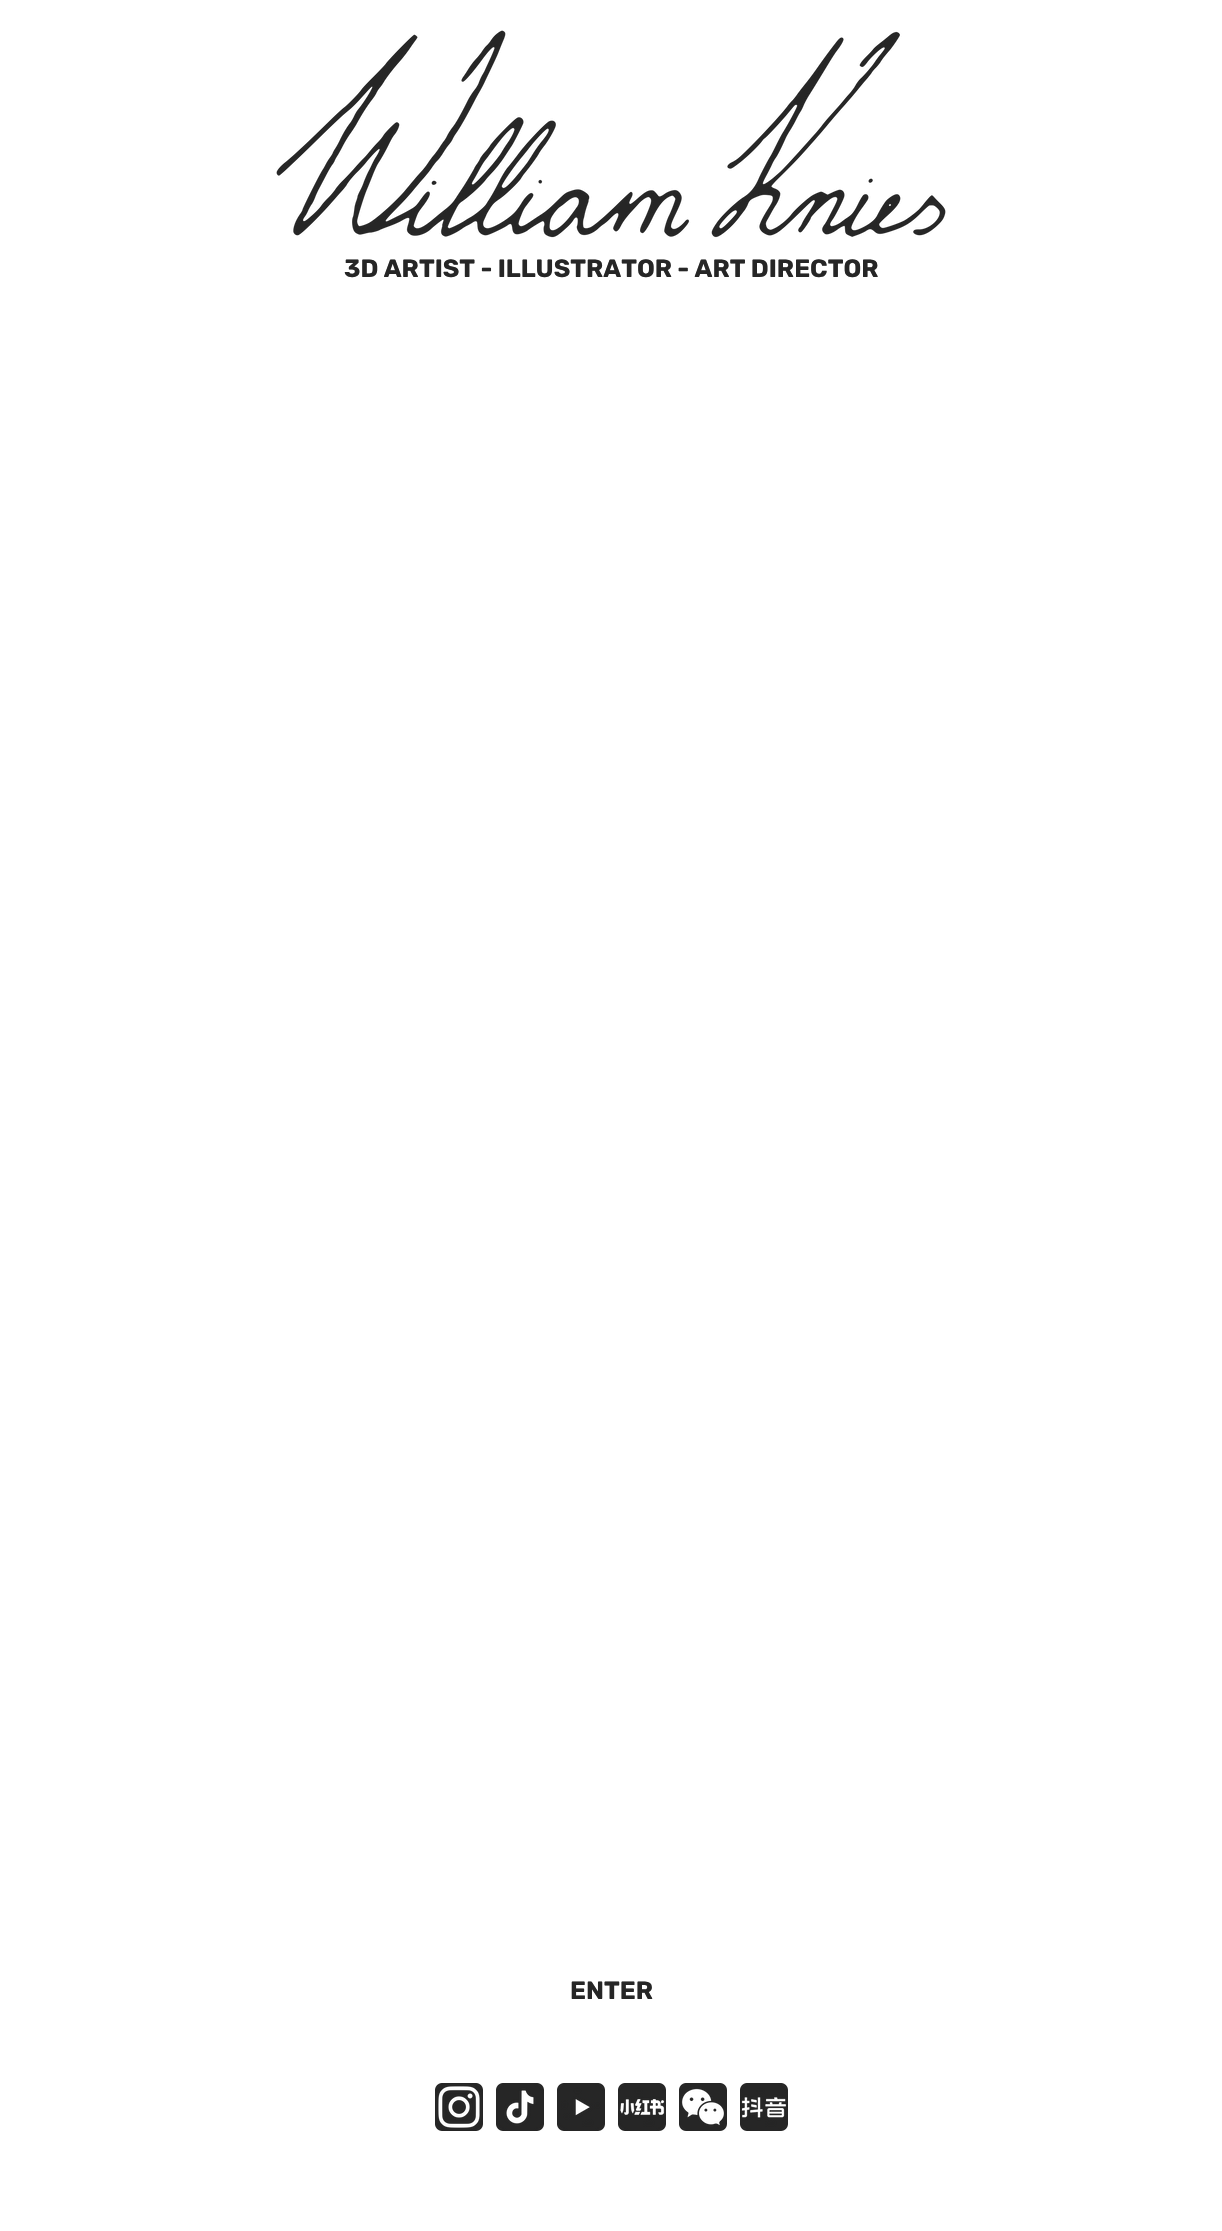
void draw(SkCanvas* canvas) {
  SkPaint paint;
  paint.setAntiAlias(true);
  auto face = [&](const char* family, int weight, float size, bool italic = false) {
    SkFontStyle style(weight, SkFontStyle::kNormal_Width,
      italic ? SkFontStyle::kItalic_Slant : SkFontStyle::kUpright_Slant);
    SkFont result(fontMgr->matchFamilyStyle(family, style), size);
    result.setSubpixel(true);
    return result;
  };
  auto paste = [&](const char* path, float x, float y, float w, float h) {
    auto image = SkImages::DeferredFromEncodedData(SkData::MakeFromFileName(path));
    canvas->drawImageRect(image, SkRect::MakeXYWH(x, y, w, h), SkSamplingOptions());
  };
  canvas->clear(0xffffffff);
  paste("img/1.png", 276, 30, 670, 208);
  paste("img/2.png", 435, 2083, 48, 48);
  paste("img/3.png", 496, 2083, 48, 48);
  paste("img/4.png", 557, 2083, 48, 48);
  paste("img/5.png", 618, 2083, 48, 48);
  paste("img/6.png", 679, 2083, 48, 48);
  paste("img/7.png", 740, 2083, 48, 48);
  auto f0 = face("Rubik", 700, 25);
  paint.setColor(0xff262626);
  canvas->drawString("3D ARTIST - ILLUSTRATOR - ART DIRECTOR", 344, 277, f0, paint);
  canvas->drawString("ENTER", 570, 1999, f0, paint);
}
